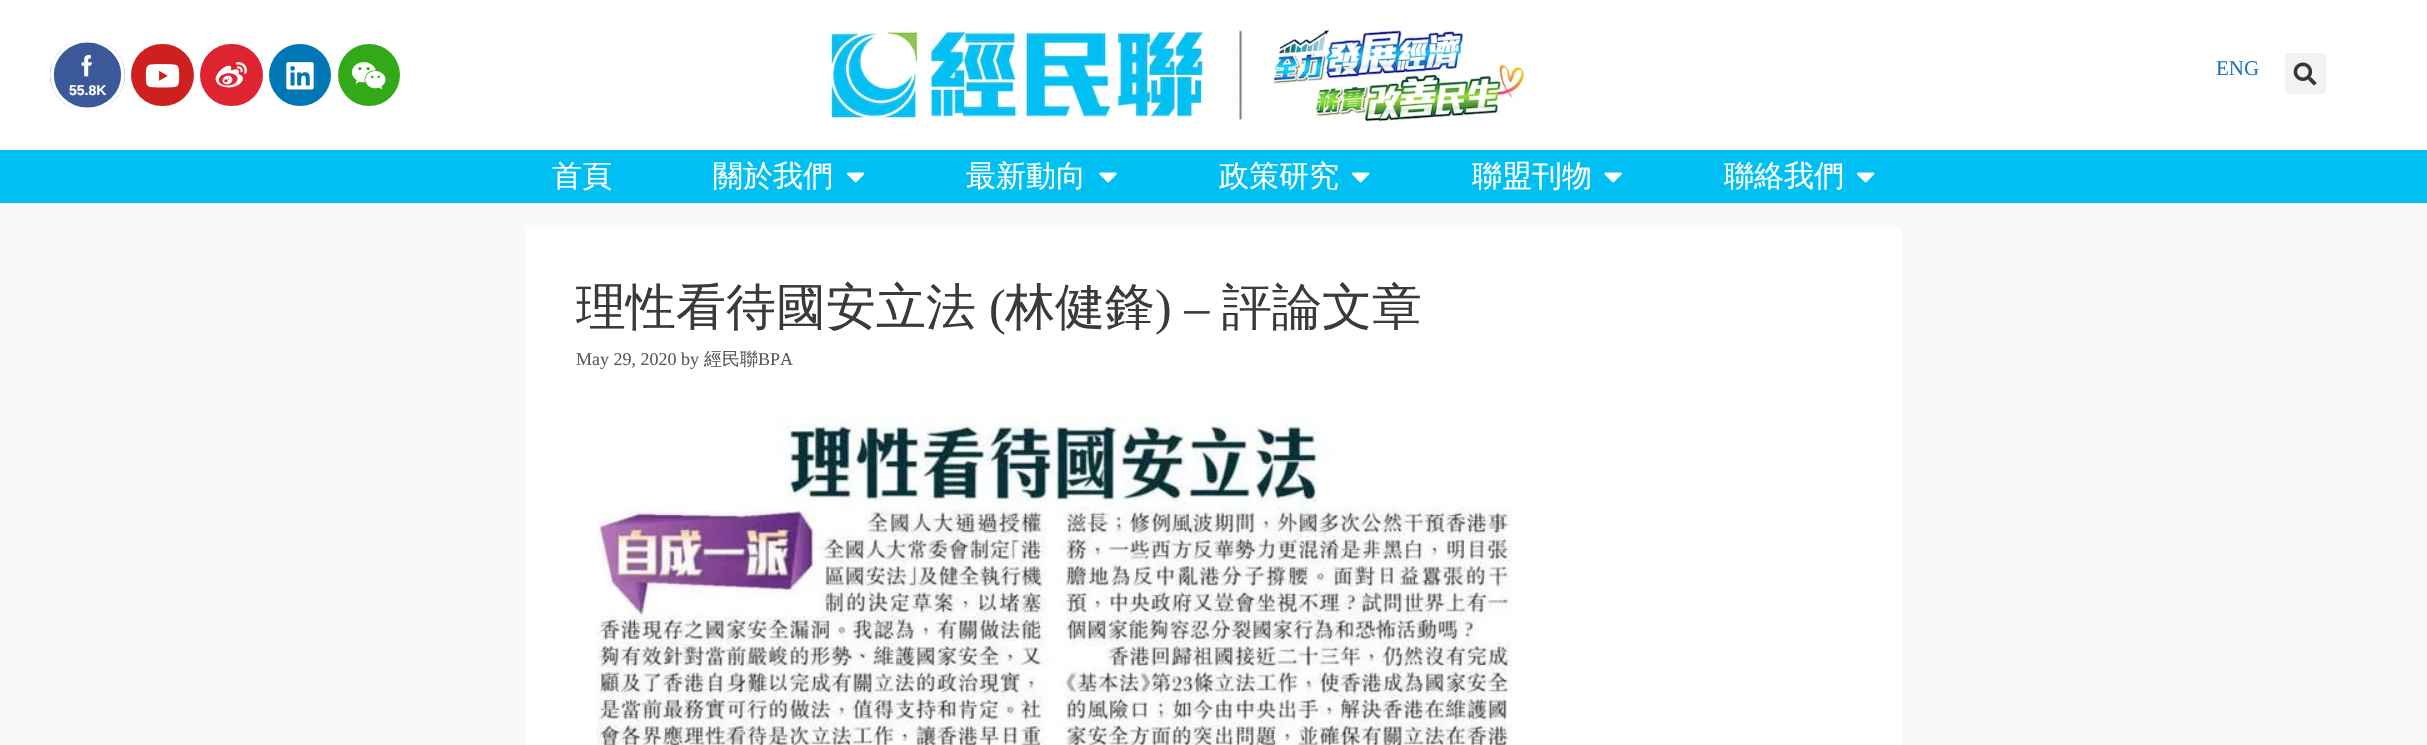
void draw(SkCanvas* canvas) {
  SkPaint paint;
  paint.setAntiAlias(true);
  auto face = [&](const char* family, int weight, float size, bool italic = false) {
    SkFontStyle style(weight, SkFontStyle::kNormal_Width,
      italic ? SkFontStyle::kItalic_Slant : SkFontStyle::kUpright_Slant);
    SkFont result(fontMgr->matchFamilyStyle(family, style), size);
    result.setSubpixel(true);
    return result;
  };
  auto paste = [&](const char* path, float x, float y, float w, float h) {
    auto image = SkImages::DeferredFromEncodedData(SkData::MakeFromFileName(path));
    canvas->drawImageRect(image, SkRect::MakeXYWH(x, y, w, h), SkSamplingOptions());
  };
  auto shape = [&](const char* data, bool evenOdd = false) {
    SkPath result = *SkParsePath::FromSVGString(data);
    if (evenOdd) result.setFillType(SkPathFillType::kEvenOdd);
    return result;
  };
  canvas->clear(0xfff9f9f9);
  paint.setColor(0xffffffff);
  canvas->drawRect(SkRect::MakeXYWH(0, 0, 2427, 150), paint);
  paste("img/1.png", 830, 29, 697, 97);
  paint.setColor(0xfff2f2f2);
  canvas->drawRoundRect(SkRect::MakeXYWH(2285, 53, 41, 41), 4, 4, paint);
  paste("img/2.png", 2293, 62, 24, 24);
  paint.setColor(0xff3b5998);
  canvas->drawOval(SkRect::MakeXYWH(50, 39, 75, 72), paint);
  paint.setStroke(true);
  paint.setStrokeWidth(3.8f);
  paint.setColor(0xffffffff);
  canvas->drawPath(shape("M87.5 40.5C107 40.5 123 56 123 75C123 94 107 109.5 87.5 109.5C68 109.5 52 94 52 75C52 56 68 40.5 87.5 40.5Z"), paint);
  paste("img/3.png", 81, 55, 12, 22);
  paint.setStroke(false);
  paint.setColor(0xffcd201f);
  canvas->drawRoundRect(SkRect::MakeXYWH(131, 44, 63, 62), 31, 31, paint);
  paste("img/4.png", 145, 64, 35, 24);
  paint.setColor(0xffdd2430);
  canvas->drawRoundRect(SkRect::MakeXYWH(200, 44, 63, 62), 31, 31, paint);
  paste("img/5.png", 215, 62, 32, 26);
  paint.setColor(0xff0077b5);
  canvas->drawCircle(300, 75, 31, paint);
  paste("img/6.png", 286, 62, 28, 28);
  paint.setColor(0xff31a918);
  canvas->drawCircle(369, 75, 31, paint);
  paste("img/7.png", 352, 62, 34, 28);
  paint.setColor(0xff00bff2);
  canvas->drawRect(SkRect::MakeXYWH(0, 150, 2427, 53), paint);
  paste("img/8.png", 846, 172, 19, 11);
  paste("img/9.png", 1099, 172, 18, 11);
  paste("img/8.png", 1351, 172, 19, 11);
  paste("img/9.png", 1604, 172, 18, 11);
  paste("img/8.png", 1856, 172, 19, 11);
  paint.setColor(0xffffffff);
  canvas->drawRect(SkRect::MakeXYWH(526, 228, 1375, 517), paint);
  paste("img/10.png", 596, 416, 916, 329);
  auto f0 = face("Liberation Serif", 400, 21);
  paint.setColor(0xff1e73be);
  canvas->drawString("ENG", 2216, 75, f0, paint);
  auto f1 = face("Liberation Sans", 700, 14);
  paint.setColor(0xffffffff);
  canvas->drawString("55.8K", 69, 95, f1, paint);
  auto f2 = face("WenQuanYi Zen Hei", 500, 30);
  {
    const struct { const char* s; float x, y; } items[] = {
      {"首頁", 552, 186},
      {"關於我們", 713, 186},
      {"最新動向", 966, 186},
      {"政策研究", 1219, 186},
      {"聯盟刊物", 1472, 186},
      {"聯絡我們", 1724, 186},
    };
    for (auto [s, x, y] : items) {
      canvas->drawString(s, x, y, f2, paint);
    }
  }
  auto f3 = face("WenQuanYi Zen Hei", 500, 50);
  paint.setColor(0xff3a3a3a);
  canvas->drawString("理性看待國安立法", 576, 324, f3, paint);
  auto f4 = face("Liberation Serif", 400, 50);
  canvas->drawString("(", 989, 324, f4, paint);
  canvas->drawString("林健鋒", 1005, 324, f3, paint);
  canvas->drawString(") –", 1155, 324, f4, paint);
  canvas->drawString("評論文章", 1222, 324, f3, paint);
  auto f5 = face("Liberation Serif", 400, 18);
  paint.setColor(0xff595959);
  canvas->drawString("May 29, 2020 by", 576, 365, f5, paint);
  auto f6 = face("WenQuanYi Zen Hei", 500, 18);
  canvas->drawString("經民聯", 704, 365, f6, paint);
  canvas->drawString("BPA", 758, 365, f5, paint);
}
